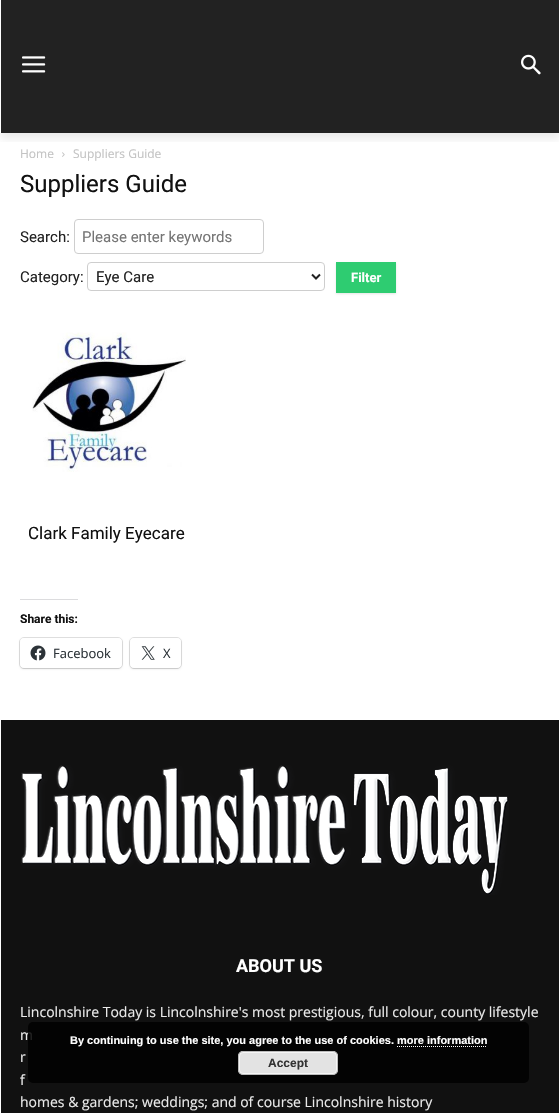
void draw(SkCanvas* canvas) {
  SkPaint paint;
  paint.setAntiAlias(true);
  auto face = [&](const char* family, int weight, float size, bool italic = false) {
    SkFontStyle style(weight, SkFontStyle::kNormal_Width,
      italic ? SkFontStyle::kItalic_Slant : SkFontStyle::kUpright_Slant);
    SkFont result(fontMgr->matchFamilyStyle(family, style), size);
    result.setSubpixel(true);
    return result;
  };
  auto paste = [&](const char* path, float x, float y, float w, float h) {
    auto image = SkImages::DeferredFromEncodedData(SkData::MakeFromFileName(path));
    canvas->drawImageRect(image, SkRect::MakeXYWH(x, y, w, h), SkSamplingOptions());
  };
  auto shape = [&](const char* data, bool evenOdd = false) {
    SkPath result = *SkParsePath::FromSVGString(data);
    if (evenOdd) result.setFillType(SkPathFillType::kEvenOdd);
    return result;
  };
  canvas->clear(0xffffffff);
  paint.setColor(0xff222222);
  canvas->drawRect(SkRect::MakeXYWH(1, 0, 558, 133), paint);
  paste("img/1.png", 22, 56, 24, 17);
  paste("img/2.png", 521, 54, 20, 21);
  canvas->save();
  canvas->clipRect(SkRect::MakeXYWH(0, 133, 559, 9));
  paint.setColor(0x14000000);
  paint.setMaskFilter(SkMaskFilter::MakeBlur(kNormal_SkBlurStyle, 4));
  canvas->drawRect(SkRect::MakeXYWH(1, 6, 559, 133), paint);
  paint.setMaskFilter(nullptr);
  canvas->restore();
  paste("img/3.png", 62, 152, 3, 5);
  paint.setStroke(true);
  paint.setStrokeWidth(1);
  paint.setColor(0xffcecece);
  canvas->drawRoundRect(SkRect::MakeXYWH(74.5f, 219.5f, 189, 34), 3.5f, 3.5f, paint);
  canvas->drawRoundRect(SkRect::MakeXYWH(87.5f, 262.5f, 237, 28), 3.5f, 3.5f, paint);
  paint.setStrokeWidth(2);
  paint.setColor(0xff222222);
  canvas->drawPath(shape("M312 274.5L316 278.5L320 274.5"), paint);
  paint.setStroke(false);
  paint.setColor(0x1a000000);
  paint.setMaskFilter(SkMaskFilter::MakeBlur(kNormal_SkBlurStyle, 1));
  canvas->drawRect(SkRect::MakeXYWH(336, 263, 60, 31), paint);
  paint.setMaskFilter(nullptr);
  paint.setColor(0xff2ecc71);
  canvas->drawRect(SkRect::MakeXYWH(336, 262, 60, 31), paint);
  paste("img/4.png", 32, 332, 154, 140);
  paint.setColor(0xffdcdcde);
  canvas->drawRect(SkRect::MakeXYWH(20, 599, 58, 1), paint);
  paint.setStroke(true);
  paint.setStrokeWidth(1);
  paint.setColor(0xffe0e0e0);
  canvas->drawRoundRect(SkRect::MakeXYWH(19.5f, 637.5f, 103, 31), 4.5f, 4.5f, paint);
  paint.setStroke(false);
  paint.setColor(0x1f000000);
  paint.setMaskFilter(SkMaskFilter::MakeBlur(kNormal_SkBlurStyle, 1));
  canvas->drawRoundRect(SkRect::MakeXYWH(20, 639, 102, 30), 4, 4, paint);
  paint.setMaskFilter(nullptr);
  paint.setColor(0xffffffff);
  canvas->drawRoundRect(SkRect::MakeXYWH(20, 638, 102, 30), 4, 4, paint);
  paste("img/5.png", 30, 645, 16, 16);
  paint.setStroke(true);
  paint.setColor(0xffe0e0e0);
  canvas->drawRoundRect(SkRect::MakeXYWH(129.5f, 637.5f, 52, 31), 4.5f, 4.5f, paint);
  paint.setStroke(false);
  paint.setColor(0x1f000000);
  paint.setMaskFilter(SkMaskFilter::MakeBlur(kNormal_SkBlurStyle, 1));
  canvas->drawRoundRect(SkRect::MakeXYWH(130, 639, 51, 30), 4, 4, paint);
  paint.setMaskFilter(nullptr);
  paint.setColor(0xffffffff);
  canvas->drawRoundRect(SkRect::MakeXYWH(130, 638, 51, 30), 4, 4, paint);
  paste("img/6.png", 141, 646, 14, 14);
  paint.setColor(0xff111111);
  canvas->drawRect(SkRect::MakeXYWH(1, 720, 558, 393), paint);
  paste("img/7.png", 21, 765, 488, 130);
  auto f0 = face("Open Sans", 400, 12);
  paint.setColor(0xffc3c3c3);
  canvas->drawString("Home", 20, 158, f0, paint);
  canvas->drawString("Suppliers Guide", 73, 158, f0, paint);
  auto f1 = face("Roboto", 400, 24);
  paint.setColor(0xff111111);
  canvas->drawString("Suppliers Guide", 20, 192, f1, paint);
  auto f2 = face("Roboto", 400, 15);
  paint.setColor(0xff222222);
  canvas->drawString("Search:", 20, 242, f2, paint);
  paint.setColor(0xff757575);
  canvas->drawString("Please enter keywords", 82, 242, f2, paint);
  paint.setColor(0xff222222);
  canvas->drawString("Category:", 20, 282, f2, paint);
  canvas->drawString("Eye Care", 96, 282, f2, paint);
  auto f3 = face("Roboto", 700, 13);
  paint.setColor(0xffffffff);
  canvas->drawString("Filter", 351, 282, f3, paint);
  auto f4 = face("Roboto", 400, 17);
  paint.setColor(0xff111111);
  canvas->drawString("Clark Family Eyecare", 28, 539, f4, paint);
  auto f5 = face("Roboto", 700, 12);
  canvas->drawString("Share this:", 20, 623, f5, paint);
  auto f6 = face("Open Sans", 400, 13);
  paint.setColor(0xff2c3338);
  canvas->drawString("Facebook", 53, 658, f6, paint);
  canvas->drawString("X", 163, 658, f6, paint);
  auto f7 = face("Roboto", 700, 18);
  paint.setColor(0xffffffff);
  canvas->drawString("ABOUT US", 236, 972, f7, paint);
  auto f8 = face("Open Sans", 400, 14);
  paint.setColor(0xffeaeaea);
  {
    const struct { const char* s; float x, y; } items[] = {
      {"Lincolnshire Today is Lincolnshire's most prestigious, full colour, county lifestyle", 20, 1017},
      {"m", 20, 1040},
      {"r", 20, 1062},
      {"f", 20, 1085},
      {"homes & gardens; weddings; and of course Lincolnshire history", 20, 1107},
    };
    for (auto [s, x, y] : items) {
      canvas->drawString(s, x, y, f8, paint);
    }
  }
  paint.setColor(0xd9000000);
  canvas->drawRoundRect(SkRect::MakeXYWH(28, 1022, 501, 61), 5, 5, paint);
  auto f9 = face("Liberation Sans", 700, 11);
  paint.setColor(0xffffffff);
  canvas->drawString("By continuing to use the site, you agree to the use of cookies. more information", 70, 1044, f9, paint);
  paint.setStroke(true);
  paint.setPathEffect(SkDashPathEffect::Make({{1, 1}}, 0));
  canvas->drawPath(shape("M397 1046.5H487"), paint);
  paint.setPathEffect(nullptr);
  paint.setStroke(false);
  paint.setColor(0xffe3e3e3);
  canvas->drawRoundRect(SkRect::MakeXYWH(238, 1051, 100, 24), 5, 5, paint);
  paint.setStroke(true);
  paint.setColor(0xfff6f6f6);
  canvas->drawRoundRect(SkRect::MakeXYWH(239.5f, 1052.5f, 97, 21), 3.5f, 3.5f, paint);
  paint.setColor(0xffbbbbbb);
  canvas->drawRoundRect(SkRect::MakeXYWH(238.5f, 1051.5f, 99, 23), 4.5f, 4.5f, paint);
  auto f10 = face("Liberation Sans", 700, 12);
  paint.setStroke(false);
  paint.setColor(0xff333333);
  canvas->drawString("Accept", 268, 1067, f10, paint);
}
